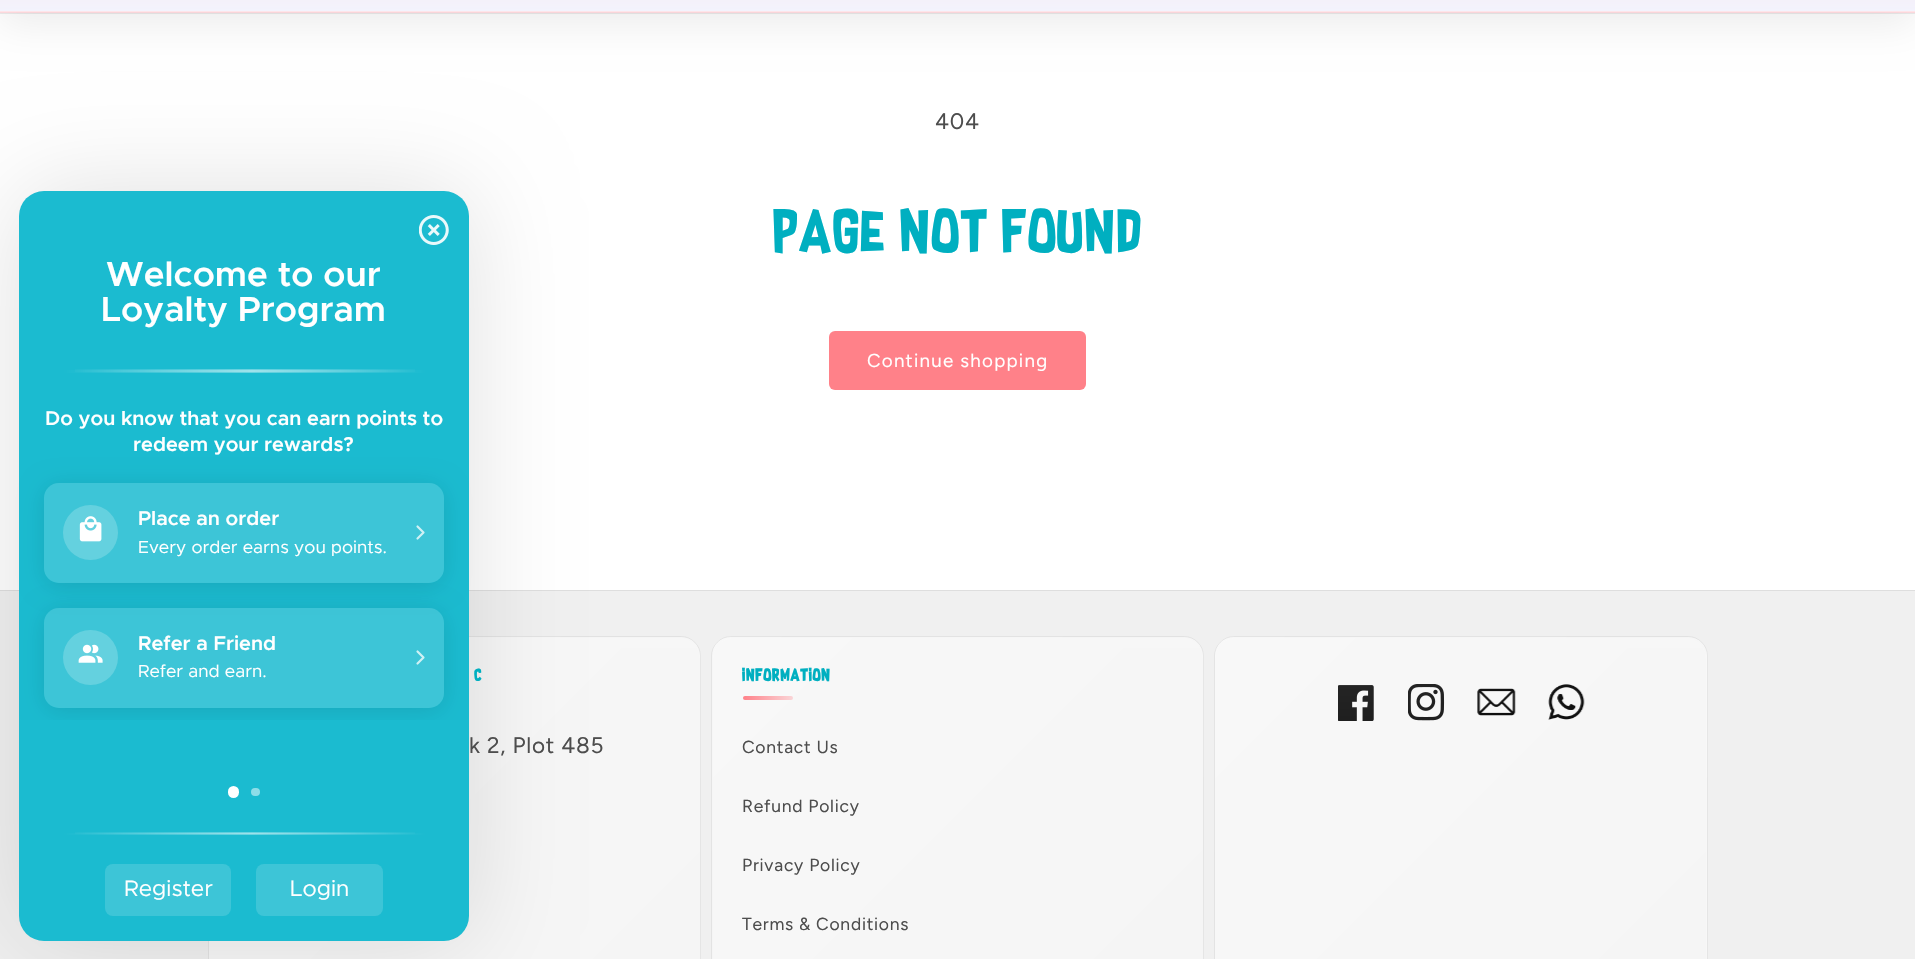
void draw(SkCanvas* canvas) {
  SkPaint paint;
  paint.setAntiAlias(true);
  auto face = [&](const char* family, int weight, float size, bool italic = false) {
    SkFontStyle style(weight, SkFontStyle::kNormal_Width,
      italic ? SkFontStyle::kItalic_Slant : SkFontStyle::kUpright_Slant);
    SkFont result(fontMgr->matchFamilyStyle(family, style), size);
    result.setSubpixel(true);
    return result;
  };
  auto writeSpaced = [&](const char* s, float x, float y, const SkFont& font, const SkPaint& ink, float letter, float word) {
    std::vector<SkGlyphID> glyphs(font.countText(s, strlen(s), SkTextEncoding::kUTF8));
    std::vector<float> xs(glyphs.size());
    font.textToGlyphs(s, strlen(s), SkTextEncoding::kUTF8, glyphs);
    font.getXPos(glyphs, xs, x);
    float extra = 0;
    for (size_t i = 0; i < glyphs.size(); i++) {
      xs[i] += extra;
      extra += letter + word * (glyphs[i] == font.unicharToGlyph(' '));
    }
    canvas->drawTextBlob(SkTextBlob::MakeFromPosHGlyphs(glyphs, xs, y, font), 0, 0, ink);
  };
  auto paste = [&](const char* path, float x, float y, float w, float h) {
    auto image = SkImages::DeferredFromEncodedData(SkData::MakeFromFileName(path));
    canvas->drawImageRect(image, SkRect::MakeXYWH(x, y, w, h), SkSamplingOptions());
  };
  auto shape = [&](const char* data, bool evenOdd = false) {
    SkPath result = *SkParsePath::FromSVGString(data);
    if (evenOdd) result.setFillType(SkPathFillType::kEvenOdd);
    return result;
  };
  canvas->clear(0xffffffff);
  paint.setColor(0xffececec);
  canvas->drawRect(SkRect::MakeXYWH(0, 13, 1915, 1), paint);
  paint.setColor(0x14000000);
  paint.setMaskFilter(SkMaskFilter::MakeBlur(kNormal_SkBlurStyle, 20));
  canvas->drawRect(SkRect::MakeXYWH(0, -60, 1915, 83), paint);
  paint.setMaskFilter(nullptr);
  {
    const SkColor colors[] = {0xffffdbe0, 0xfff3f3fd};
    const float stops[] = {0, 1};
    const SkPoint ends[] = {{958, -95}, {958, 11}};
    paint.setShader(SkGradientShader::MakeLinear(ends, colors, stops, 2, SkTileMode::kClamp));
    paint.setAlpha(255);
  }
  canvas->drawRect(SkRect::MakeXYWH(0, 0, 1915, 11), paint);
  {
    const SkColor colors[] = {0x80ffb6c1, 0x80e6e6fa};
    const float stops[] = {0, 1};
    const SkPoint ends[] = {{958, 11}, {958, 118}};
    paint.setShader(SkGradientShader::MakeLinear(ends, colors, stops, 2, SkTileMode::kClamp));
    paint.setAlpha(255);
  }
  canvas->drawRect(SkRect::MakeXYWH(0, 12, 1915, 1), paint);
  paint.setShader(nullptr);
  {
    const struct { float x, y, w, h; SkColor color; } items[] = {
      {0, 11, 1915, 1, 0xfffee5e9},
      {0, 591, 1915, 368, 0xfff0f0f0},
      {0, 590, 1915, 1, 0xffdedede},
    };
    for (auto [x, y, w, h, color] : items) {
      paint.setColor(color);
      canvas->drawRect(SkRect::MakeXYWH(x, y, w, h), paint);
    }
  }
  canvas->save();
  canvas->clipPath(shape("M228 636H681C692 636 701 645 701 656V973C701 984 692 993 681 993H228C217 993 208 984 208 973V656C208 645 217 636 228 636Z"), true);
  {
    const SkColor colors[] = {0xfff8f8f8, 0xfff5f5f5};
    const float stops[] = {0, 1};
    const SkPoint ends[] = {{243, 249}, {666, 672}};
    paint.setShader(SkGradientShader::MakeLinear(ends, colors, stops, 2, SkTileMode::kClamp));
    paint.setAlpha(255);
  }
  canvas->drawRect(SkRect::MakeXYWH(469, 636, 221, 2), paint);
  canvas->restore();
  {
    const SkColor colors[] = {0xfff8f8f8, 0xfff5f5f5};
    const float stops[] = {0, 1};
    const SkPoint ends[] = {{-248, 603}, {174, 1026}};
    paint.setShader(SkGradientShader::MakeLinear(ends, colors, stops, 2, SkTileMode::kClamp));
    paint.setAlpha(255);
  }
  canvas->drawRect(SkRect::MakeXYWH(208, 941, 1, 18), paint);
  canvas->save();
  canvas->clipPath(shape("M228 636H681C692 636 701 645 701 656V973C701 984 692 993 681 993H228C217 993 208 984 208 973V656C208 645 217 636 228 636Z"), true);
  {
    const SkColor colors[] = {0xfff8f8f8, 0xfff5f5f5};
    const float stops[] = {0, 1};
    const SkPoint ends[] = {{243, 603}, {666, 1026}};
    paint.setShader(SkGradientShader::MakeLinear(ends, colors, stops, 2, SkTileMode::kClamp));
    paint.setAlpha(255);
  }
  canvas->drawRect(SkRect::MakeXYWH(209, 638, 491, 321), paint);
  {
    const SkColor colors[] = {0xfff8f8f8, 0xfff5f5f5};
    const float stops[] = {0, 1};
    const SkPoint ends[] = {{734, 603}, {1157, 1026}};
    paint.setShader(SkGradientShader::MakeLinear(ends, colors, stops, 2, SkTileMode::kClamp));
    paint.setAlpha(255);
  }
  canvas->drawRect(SkRect::MakeXYWH(700, 650, 1, 309), paint);
  canvas->restore();
  paint.setStroke(true);
  paint.setStrokeWidth(1);
  paint.setShader(nullptr);
  paint.setColor(0x14121212);
  canvas->drawRoundRect(SkRect::MakeXYWH(208.5f, 636.5f, 492, 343), 19.5f, 19.5f, paint);
  paint.setStroke(false);
  {
    const SkColor colors[] = {0x1affffff, 0x00ffffff};
    const float stops[] = {0, 1};
    const SkPoint ends[] = {{454, 638}, {454, 814}};
    paint.setShader(SkGradientShader::MakeLinear(ends, colors, stops, 2, SkTileMode::kClamp));
    paint.setAlpha(255);
  }
  canvas->drawPath(shape("M229 638H680C691 638 700 647 700 658V814H209V658C209 647 218 638 229 638Z"), paint);
  paint.setShader(nullptr);
  paint.setColor(0x1f000000);
  paint.setMaskFilter(SkMaskFilter::MakeBlur(kNormal_SkBlurStyle, 50));
  canvas->drawRoundRect(SkRect::MakeXYWH(19, 191, 450, 750), 25, 25, paint);
  paint.setMaskFilter(nullptr);
  paint.setColor(0xff1bbbd0);
  canvas->drawRoundRect(SkRect::MakeXYWH(19, 191, 450, 750), 25, 25, paint);
  paste("img/1.png", 419, 215, 30, 30);
  {
    const SkColor colors[] = {0xff1bbbd0, 0xff6bd3e0, 0xff1bbbd0};
    const float stops[] = {0, 0.52f, 1};
    const SkPoint ends[] = {{63, 371}, {426, 371}};
    paint.setShader(SkGradientShader::MakeLinear(ends, colors, stops, 3, SkTileMode::kClamp));
    paint.setAlpha(255);
  }
  canvas->drawRect(SkRect::MakeXYWH(63, 370, 363, 3), paint);
  {
    const SkColor colors[] = {0x00ffffff, 0x59ffffff, 0x00ffffff};
    const float stops[] = {0, 0.52f, 1};
    const SkPoint ends[] = {{63, 371}, {426, 371}};
    paint.setShader(SkGradientShader::MakeLinear(ends, colors, stops, 3, SkTileMode::kClamp));
    paint.setAlpha(255);
  }
  canvas->drawRect(SkRect::MakeXYWH(75, 369, 340, 3), paint);
  canvas->save();
  canvas->clipPath(shape("M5 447H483V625H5ZM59 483H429C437.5 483 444 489.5 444 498V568C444 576.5 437.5 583 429 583H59C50.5 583 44 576.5 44 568V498C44 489.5 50.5 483 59 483Z", true), true);
  paint.setShader(nullptr);
  paint.setColor(0x1a000000);
  paint.setMaskFilter(SkMaskFilter::MakeBlur(kNormal_SkBlurStyle, 12.5f));
  canvas->drawRoundRect(SkRect::MakeXYWH(44, 486, 400, 100), 15, 15, paint);
  paint.setMaskFilter(nullptr);
  canvas->restore();
  paint.setColor(0x26ffffff);
  canvas->drawRoundRect(SkRect::MakeXYWH(44, 483, 400, 100), 15, 15, paint);
  paint.setColor(0xff64d1df);
  canvas->drawCircle(90.5f, 532.5f, 27.5f, paint);
  paste("img/2.png", 79, 516, 23, 26);
  paint.setStroke(true);
  paint.setStrokeWidth(2.2f);
  paint.setStrokeCap(SkPaint::kRound_Cap);
  paint.setStrokeJoin(SkPaint::kRound_Join);
  paint.setColor(0xffcff1f5);
  canvas->drawPath(shape("M417.5 526.5L423.5 532.5L417.5 538.5"), paint);
  canvas->save();
  canvas->clipRect(SkRect::MakeXYWH(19, 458, 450, 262));
  canvas->clipPath(shape("M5 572H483V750H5ZM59 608H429C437.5 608 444 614.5 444 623V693C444 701.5 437.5 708 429 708H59C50.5 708 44 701.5 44 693V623C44 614.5 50.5 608 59 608Z", true), true);
  paint.setStroke(false);
  paint.setColor(0x1a000000);
  paint.setMaskFilter(SkMaskFilter::MakeBlur(kNormal_SkBlurStyle, 12.5f));
  canvas->drawRoundRect(SkRect::MakeXYWH(44, 611, 400, 100), 15, 15, paint);
  paint.setMaskFilter(nullptr);
  canvas->restore();
  paint.setColor(0x26ffffff);
  canvas->drawRoundRect(SkRect::MakeXYWH(44, 608, 400, 100), 15, 15, paint);
  paint.setColor(0xff64d1df);
  canvas->drawCircle(90.5f, 657.5f, 27.5f, paint);
  paste("img/3.png", 78, 644, 25, 19);
  paint.setStroke(true);
  paint.setColor(0xffcff1f5);
  canvas->drawPath(shape("M417.5 651.5L423.5 657.5L417.5 663.5"), paint);
  paint.setStroke(false);
  paint.setColor(0xffffffff);
  canvas->drawRoundRect(SkRect::MakeXYWH(228, 786, 11, 12), 5.5f, 5.5f, paint);
  paint.setColor(0xff8ddde8);
  canvas->drawRoundRect(SkRect::MakeXYWH(251, 788, 9, 8), 4, 4, paint);
  {
    const SkColor colors[] = {0xff1bbbd0, 0xff6bd3e0, 0xff1bbbd0};
    const float stops[] = {0, 0.52f, 1};
    const SkPoint ends[] = {{63, 834}, {426, 834}};
    paint.setShader(SkGradientShader::MakeLinear(ends, colors, stops, 3, SkTileMode::kClamp));
    paint.setAlpha(255);
  }
  canvas->drawRect(SkRect::MakeXYWH(63, 833, 363, 2), paint);
  {
    const SkColor colors[] = {0x00ffffff, 0x59ffffff, 0x00ffffff};
    const float stops[] = {0, 0.52f, 1};
    const SkPoint ends[] = {{63, 833}, {426, 833}};
    paint.setShader(SkGradientShader::MakeLinear(ends, colors, stops, 3, SkTileMode::kClamp));
    paint.setAlpha(255);
  }
  canvas->drawRect(SkRect::MakeXYWH(75, 832, 340, 2), paint);
  paint.setShader(nullptr);
  paint.setColor(0xff3dc5d7);
  canvas->drawRoundRect(SkRect::MakeXYWH(105, 864, 126, 52), 8, 8, paint);
  canvas->drawRoundRect(SkRect::MakeXYWH(256, 864, 127, 52), 8, 8, paint);
  canvas->save();
  canvas->clipPath(shape("M731 636H1184C1195 636 1204 645 1204 656V973C1204 984 1195 993 1184 993H731C720 993 711 984 711 973V656C711 645 720 636 731 636Z"), true);
  {
    const SkColor colors[] = {0xfff8f8f8, 0xfff5f5f5};
    const float stops[] = {0, 1};
    const SkPoint ends[] = {{747, 250}, {1168, 672}};
    paint.setShader(SkGradientShader::MakeLinear(ends, colors, stops, 2, SkTileMode::kClamp));
    paint.setAlpha(255);
  }
  canvas->drawRect(SkRect::MakeXYWH(722, 636, 471, 2), paint);
  {
    const SkColor colors[] = {0xfff8f8f8, 0xfff5f5f5};
    const float stops[] = {0, 1};
    const SkPoint ends[] = {{257, 603}, {678, 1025}};
    paint.setShader(SkGradientShader::MakeLinear(ends, colors, stops, 2, SkTileMode::kClamp));
    paint.setAlpha(255);
  }
  canvas->drawRect(SkRect::MakeXYWH(711, 647, 2, 312), paint);
  {
    const SkColor colors[] = {0xfff8f8f8, 0xfff5f5f5};
    const float stops[] = {0, 1};
    const SkPoint ends[] = {{747, 603}, {1168, 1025}};
    paint.setShader(SkGradientShader::MakeLinear(ends, colors, stops, 2, SkTileMode::kClamp));
    paint.setAlpha(255);
  }
  canvas->drawRect(SkRect::MakeXYWH(713, 638, 490, 321), paint);
  {
    const SkColor colors[] = {0xfff8f8f8, 0xfff5f5f5};
    const float stops[] = {0, 1};
    const SkPoint ends[] = {{1237, 603}, {1658, 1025}};
    paint.setShader(SkGradientShader::MakeLinear(ends, colors, stops, 2, SkTileMode::kClamp));
    paint.setAlpha(255);
  }
  canvas->drawRect(SkRect::MakeXYWH(1203, 650, 1, 309), paint);
  canvas->restore();
  paint.setStroke(true);
  paint.setStrokeWidth(1);
  paint.setStrokeCap(SkPaint::kButt_Cap);
  paint.setStrokeJoin(SkPaint::kMiter_Join);
  paint.setShader(nullptr);
  paint.setColor(0x14121212);
  canvas->drawRoundRect(SkRect::MakeXYWH(711.5f, 636.5f, 492, 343), 19.5f, 19.5f, paint);
  paint.setStroke(false);
  {
    const SkColor colors[] = {0x1affffff, 0x00ffffff};
    const float stops[] = {0, 1};
    const SkPoint ends[] = {{958, 638}, {958, 814}};
    paint.setShader(SkGradientShader::MakeLinear(ends, colors, stops, 2, SkTileMode::kClamp));
    paint.setAlpha(255);
  }
  canvas->drawPath(shape("M733 638H1183C1194 638 1203 647 1203 658V814H713V658C713 647 722 638 733 638Z"), paint);
  {
    const SkColor colors[] = {0xffff8189, 0xfffad5d7};
    const float stops[] = {0, 1};
    const SkPoint ends[] = {{743, 698}, {793, 698}};
    paint.setShader(SkGradientShader::MakeLinear(ends, colors, stops, 2, SkTileMode::kClamp));
    paint.setAlpha(255);
  }
  canvas->drawRoundRect(SkRect::MakeXYWH(743, 696, 50, 4), 2, 2, paint);
  canvas->save();
  canvas->clipPath(shape("M1234 636H1688C1699 636 1708 645 1708 656V973C1708 984 1699 993 1688 993H1234C1223 993 1214 984 1214 973V656C1214 645 1223 636 1234 636Z"), true);
  {
    const SkColor colors[] = {0xfff8f8f8, 0xfff5f5f5};
    const float stops[] = {0, 1};
    const SkPoint ends[] = {{1249, 249}, {1672, 672}};
    paint.setShader(SkGradientShader::MakeLinear(ends, colors, stops, 2, SkTileMode::kClamp));
    paint.setAlpha(255);
  }
  canvas->drawRect(SkRect::MakeXYWH(1225, 636, 472, 2), paint);
  {
    const SkColor colors[] = {0xfff8f8f8, 0xfff5f5f5};
    const float stops[] = {0, 1};
    const SkPoint ends[] = {{758, 603}, {1181, 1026}};
    paint.setShader(SkGradientShader::MakeLinear(ends, colors, stops, 2, SkTileMode::kClamp));
    paint.setAlpha(255);
  }
  canvas->drawRect(SkRect::MakeXYWH(1214, 650, 1, 309), paint);
  {
    const SkColor colors[] = {0xfff8f8f8, 0xfff5f5f5};
    const float stops[] = {0, 1};
    const SkPoint ends[] = {{1249, 603}, {1672, 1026}};
    paint.setShader(SkGradientShader::MakeLinear(ends, colors, stops, 2, SkTileMode::kClamp));
    paint.setAlpha(255);
  }
  canvas->drawRect(SkRect::MakeXYWH(1215, 638, 491, 321), paint);
  {
    const SkColor colors[] = {0xfff8f8f8, 0xfff5f5f5};
    const float stops[] = {0, 1};
    const SkPoint ends[] = {{1741, 603}, {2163, 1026}};
    paint.setShader(SkGradientShader::MakeLinear(ends, colors, stops, 2, SkTileMode::kClamp));
    paint.setAlpha(255);
  }
  canvas->drawRect(SkRect::MakeXYWH(1706, 647, 2, 312), paint);
  canvas->restore();
  paint.setStroke(true);
  paint.setShader(nullptr);
  paint.setColor(0x14121212);
  canvas->drawRoundRect(SkRect::MakeXYWH(1214.5f, 636.5f, 493, 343), 19.5f, 19.5f, paint);
  paste("img/4.png", 1338, 685, 36, 36);
  paste("img/5.png", 1408, 684, 37, 37);
  paste("img/6.png", 1477, 688, 39, 28);
  paste("img/7.png", 1548, 684, 37, 36);
  paint.setStroke(false);
  {
    const SkColor colors[] = {0x1affffff, 0x00ffffff};
    const float stops[] = {0, 1};
    const SkPoint ends[] = {{1461, 638}, {1461, 814}};
    paint.setShader(SkGradientShader::MakeLinear(ends, colors, stops, 2, SkTileMode::kClamp));
    paint.setAlpha(255);
  }
  canvas->drawPath(shape("M1235 638H1686C1697 638 1706 647 1706 658V814H1215V658C1215 647 1224 638 1235 638Z"), paint);
  paint.setShader(nullptr);
  paint.setColor(0xffff8189);
  canvas->drawRoundRect(SkRect::MakeXYWH(829, 331, 257, 59), 6, 6, paint);
  auto f0 = face("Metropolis", 600, 35);
  paint.setColor(0xffffffff);
  canvas->drawString("Welcome to our", 106, 286, f0, paint);
  canvas->drawString("Loyalty Program", 101, 321, f0, paint);
  auto f1 = face("Metropolis", 600, 20);
  {
    const struct { const char* s; float x, y; } items[] = {
      {"Do you know that you can earn points to", 45, 425},
      {"redeem your rewards?", 133, 451},
      {"Place an order", 138, 525},
    };
    for (auto [s, x, y] : items) {
      canvas->drawString(s, x, y, f1, paint);
    }
  }
  auto f2 = face("Metropolis", 400, 17.5f);
  canvas->drawString("Every order earns you points.", 138, 553, f2, paint);
  canvas->drawString("Refer a Friend", 138, 650, f1, paint);
  canvas->drawString("Refer and earn.", 138, 677, f2, paint);
  auto f3 = face("Metropolis", 400, 22.5f);
  canvas->drawString("Register", 124, 896, f3, paint);
  canvas->drawString("Login", 290, 896, f3, paint);
  auto f4 = face("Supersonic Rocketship", 700, 14);
  paint.setColor(0xff00afc0);
  writeSpaced("C", 474, 680, f4, paint, 0.75f, 0);
  auto f5 = face("Figtree", 400, 22.5f);
  paint.setColor(0xff4d4d4d);
  writeSpaced("k 2, Plot 485", 469, 753, f5, paint, 0.75f, 0);
  paint.setColor(0xff00afc0);
  writeSpaced("Information", 742, 680, f4, paint, 0.75f, 0);
  auto f6 = face("Figtree", 400, 17.5f);
  paint.setColor(0xff4d4d4d);
  {
    const struct { const char* s; float x, y; } items[] = {
      {"Contact Us", 742, 753},
      {"Refund Policy", 742, 812},
      {"Privacy Policy", 742, 871},
      {"Terms & Conditions", 742, 930},
    };
    for (auto [s, x, y] : items) {
      writeSpaced(s, x, y, f6, paint, 0.75f, 0);
    }
  }
  writeSpaced("404", 935, 129, f5, paint, 0.75f, 0);
  auto f7 = face("Supersonic Rocketship", 400, 50);
  paint.setColor(0xff00afc0);
  writeSpaced("Page not found", 772, 249, f7, paint, 0.75f, 0);
  auto f8 = face("Figtree", 400, 18.75f);
  paint.setColor(0xffffffff);
  writeSpaced("Continue shopping", 867, 367, f8, paint, 1.25f, 0);
}
